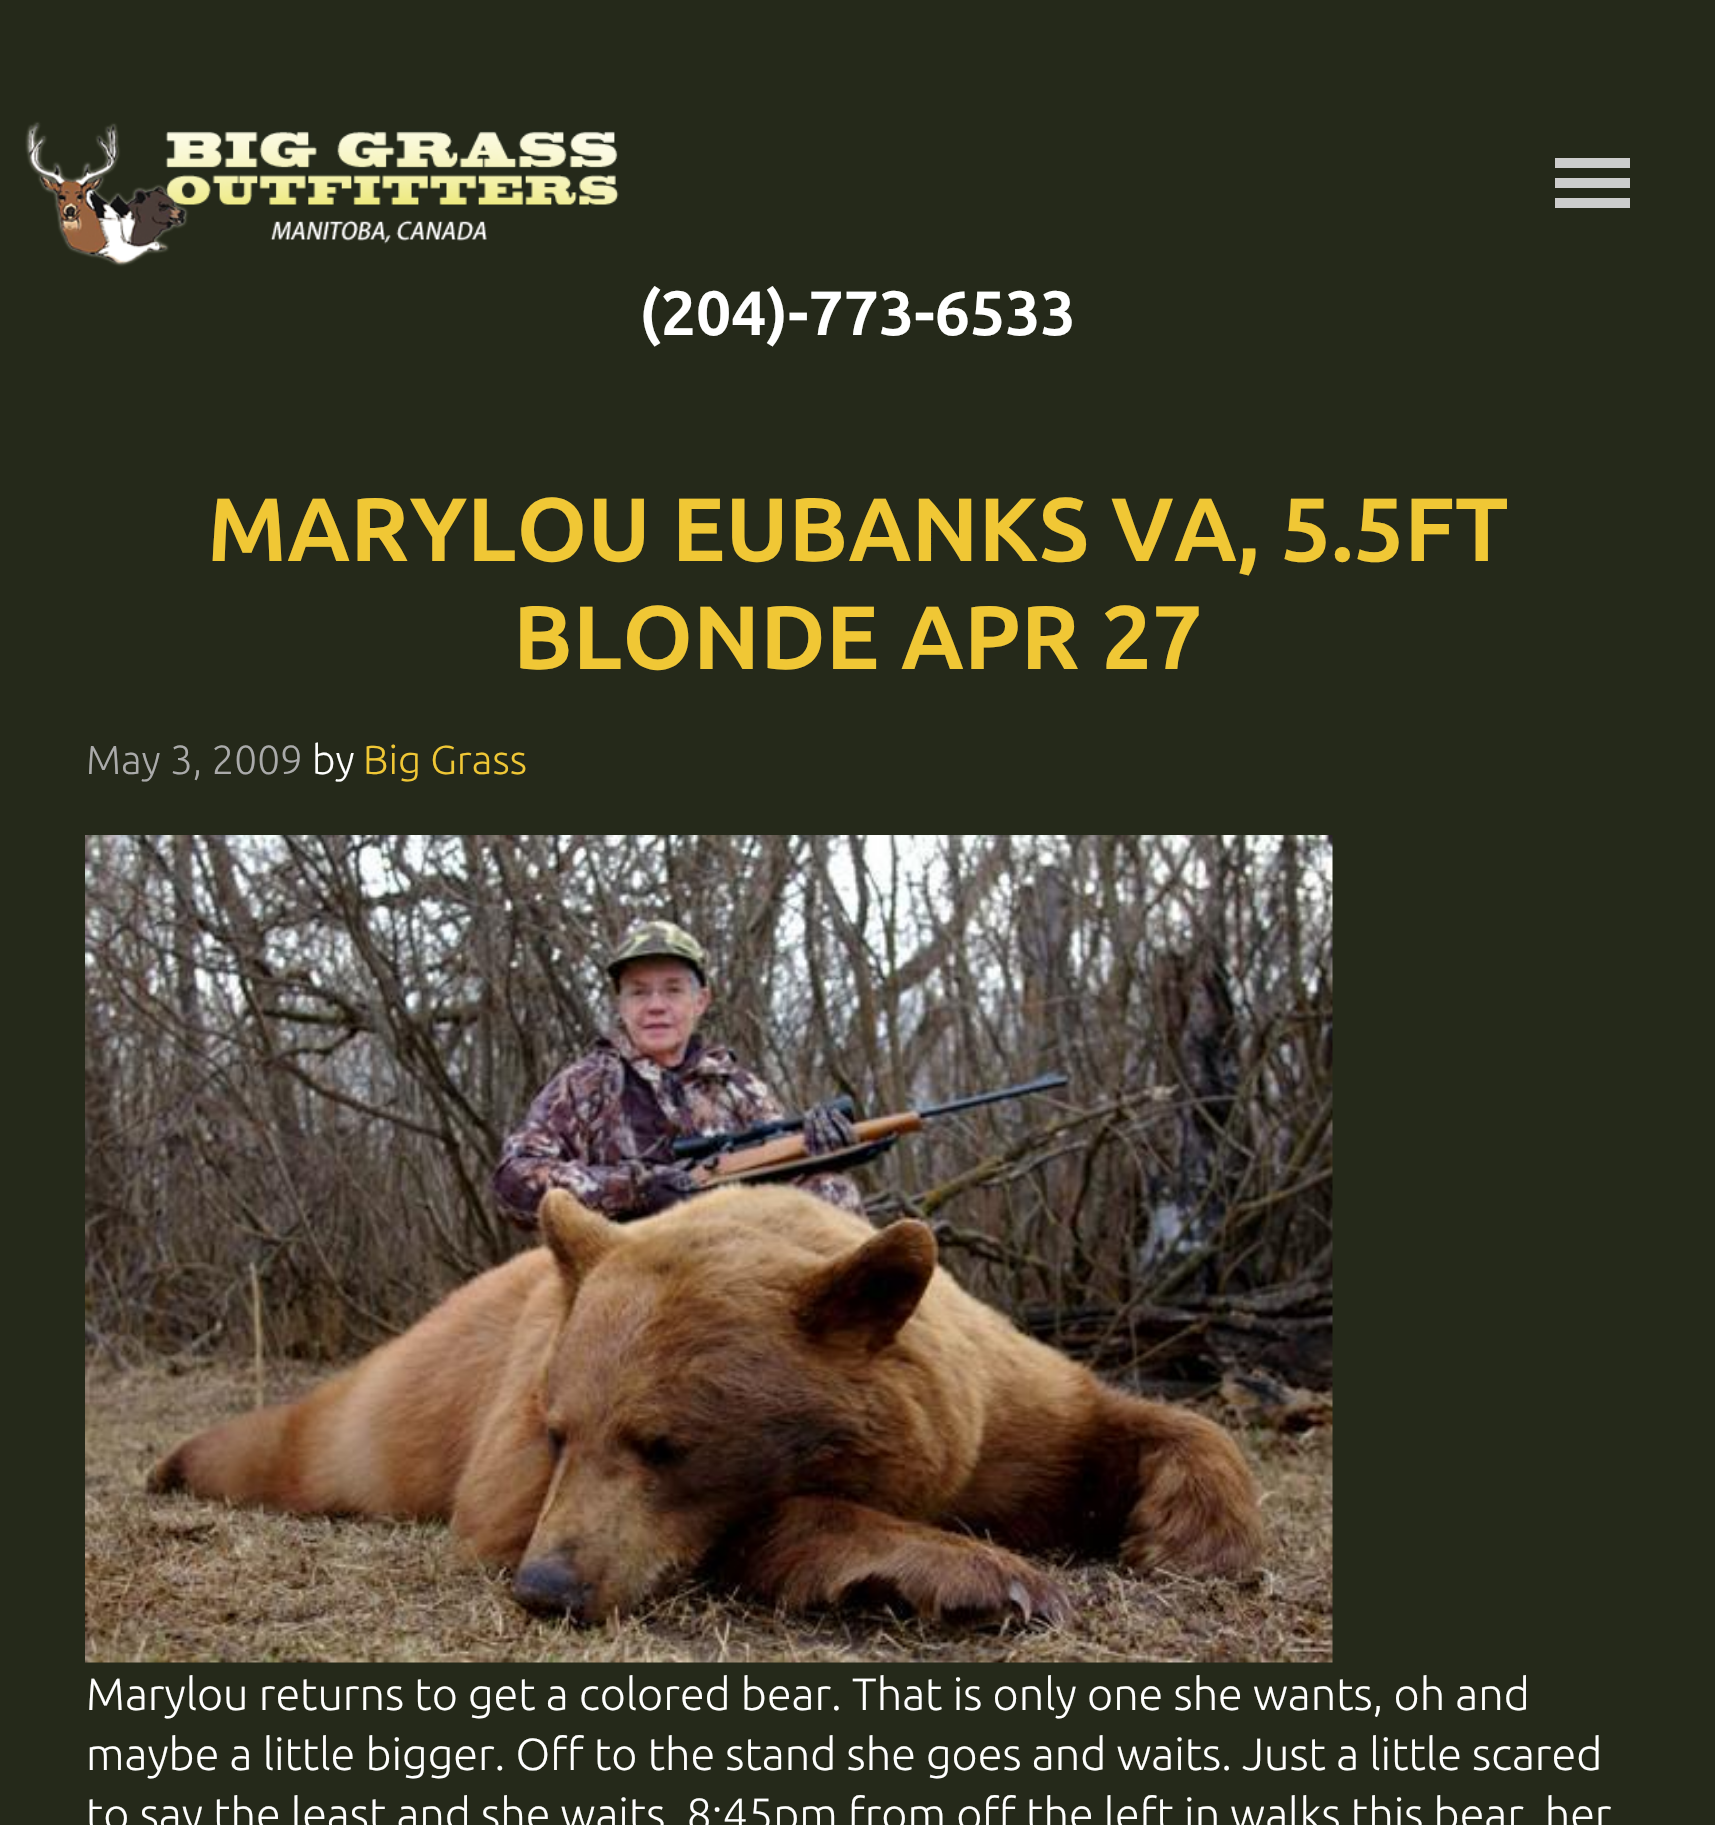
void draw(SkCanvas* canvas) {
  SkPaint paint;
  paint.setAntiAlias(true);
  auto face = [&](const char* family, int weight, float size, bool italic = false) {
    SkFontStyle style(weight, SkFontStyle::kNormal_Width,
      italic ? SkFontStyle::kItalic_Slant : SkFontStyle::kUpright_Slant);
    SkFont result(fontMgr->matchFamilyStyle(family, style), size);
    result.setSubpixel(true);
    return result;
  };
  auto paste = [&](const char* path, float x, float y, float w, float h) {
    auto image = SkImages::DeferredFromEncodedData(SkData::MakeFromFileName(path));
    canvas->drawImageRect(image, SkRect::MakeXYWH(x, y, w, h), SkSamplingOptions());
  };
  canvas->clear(0xff25291a);
  {
    const struct { float x, y, w, h; SkColor color; } items[] = {
      {1555, 158, 75, 10, 0xffcccccc},
      {1555, 178, 75, 10, 0xffcccccc},
      {1555, 198, 75, 10, 0xffcccccc},
    };
    for (auto [x, y, w, h, color] : items) {
      paint.setColor(color);
      canvas->drawRect(SkRect::MakeXYWH(x, y, w, h), paint);
    }
  }
  paste("img/1.png", 25, 121, 594, 146);
  paste("img/2.png", 85, 835, 1248, 828);
  auto f0 = face("Ubuntu", 700, 62.5f);
  paint.setColor(0xffffffff);
  canvas->drawString("(204)-773-6533", 639, 335, f0, paint);
  auto f1 = face("Ubuntu", 700, 90);
  paint.setColor(0xfff0c735);
  canvas->drawString("MARYLOU EUBANKS VA, 5.5FT", 207, 561, f1, paint);
  canvas->drawString("BLONDE APR 27", 513, 669, f1, paint);
  auto f2 = face("Ubuntu", 300, 40.5f);
  paint.setColor(0xffaaaaaa);
  canvas->drawString("May 3, 2009", 86, 774, f2, paint);
  paint.setColor(0xffffffff);
  canvas->drawString("by", 312, 774, f2, paint);
  paint.setColor(0xfff0c735);
  canvas->drawString("Big Grass", 363, 774, f2, paint);
  auto f3 = face("Ubuntu", 300, 45);
  paint.setColor(0xffffffff);
  {
    const struct { const char* s; float x, y; } items[] = {
      {"Marylou returns to get a colored bear. That is only one she wants, oh and", 86, 1710},
      {"maybe a little bigger. Off to the stand she goes and waits. Just a little scared", 86, 1770},
      {"to say the least and she waits. 8;45pm from off the left in walks this bear, her", 86, 1830},
    };
    for (auto [s, x, y] : items) {
      canvas->drawString(s, x, y, f3, paint);
    }
  }
}
